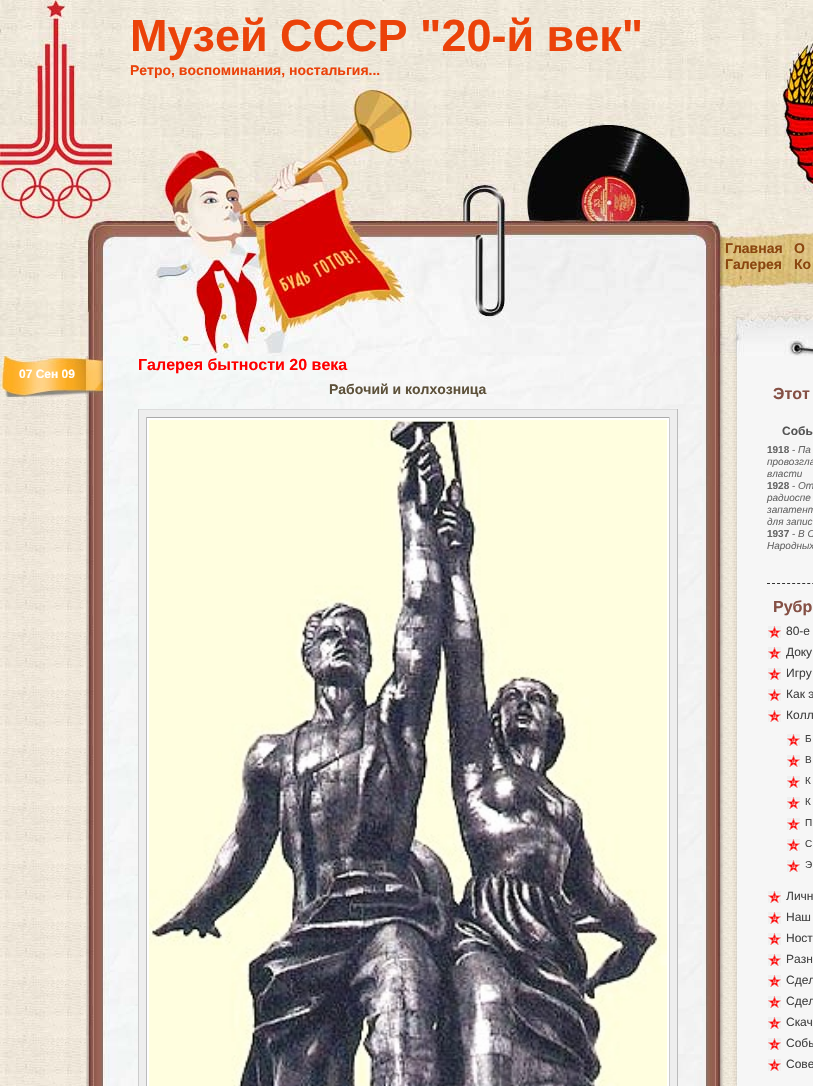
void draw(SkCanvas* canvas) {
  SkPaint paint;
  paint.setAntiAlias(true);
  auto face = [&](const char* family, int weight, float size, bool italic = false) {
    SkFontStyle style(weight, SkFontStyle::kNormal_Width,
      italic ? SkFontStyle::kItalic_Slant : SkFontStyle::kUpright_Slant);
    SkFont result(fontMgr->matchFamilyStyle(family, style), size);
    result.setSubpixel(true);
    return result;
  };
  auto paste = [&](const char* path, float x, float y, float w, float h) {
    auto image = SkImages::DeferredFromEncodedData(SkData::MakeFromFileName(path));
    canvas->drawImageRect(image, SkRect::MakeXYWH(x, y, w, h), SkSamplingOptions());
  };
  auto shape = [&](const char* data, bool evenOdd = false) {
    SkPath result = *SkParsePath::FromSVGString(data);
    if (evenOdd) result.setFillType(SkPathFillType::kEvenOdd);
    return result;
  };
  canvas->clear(0xffffffff);
  paste("img/1.png", 0, 397, 86, 689);
  paste("img/2.png", 0, 0, 813, 356);
  paste("img/3.png", 86, 356, 637, 730);
  paste("img/4.png", 0, 356, 103, 41);
  {
    const struct { float x, y, w, h; SkColor color; } items[] = {
      {139, 410, 538, 676, 0xffeeeeee},
      {138, 409, 540, 1, 0xffdddddd},
      {677, 409, 1, 677, 0xffbbbbbb},
      {138, 409, 1, 677, 0xffcccccc},
      {146, 417, 524, 1, 0xffaaaaaa},
      {146, 417, 1, 669, 0xffbbbbbb},
      {147, 418, 522, 668, 0xffffffff},
      {669, 417, 1, 669, 0xffcccccc},
    };
    for (auto [x, y, w, h, color] : items) {
      paint.setColor(color);
      canvas->drawRect(SkRect::MakeXYWH(x, y, w, h), paint);
    }
  }
  paste("img/5.png", 149, 420, 518, 666);
  paste("img/6.png", 723, 356, 90, 730);
  paint.setStroke(true);
  paint.setStrokeWidth(1);
  paint.setColor(0xff323232);
  paint.setPathEffect(SkDashPathEffect::Make({{3, 2.03f}}, 0));
  canvas->drawPath(shape("M767 583.5H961"), paint);
  paint.setPathEffect(nullptr);
  paste("img/7.png", 768, 626, 13, 12);
  paste("img/7.png", 768, 647, 13, 12);
  paste("img/7.png", 768, 668, 13, 12);
  paste("img/7.png", 768, 689, 13, 12);
  paste("img/7.png", 768, 710, 13, 12);
  paste("img/7.png", 787, 734, 13, 12);
  paste("img/7.png", 787, 755, 13, 12);
  paste("img/7.png", 787, 776, 13, 12);
  paste("img/7.png", 787, 797, 13, 12);
  paste("img/7.png", 787, 818, 13, 12);
  paste("img/7.png", 787, 839, 13, 12);
  paste("img/7.png", 787, 860, 13, 12);
  paste("img/7.png", 768, 891, 13, 12);
  paste("img/7.png", 768, 912, 13, 12);
  paste("img/7.png", 768, 933, 13, 12);
  paste("img/7.png", 768, 954, 13, 12);
  paste("img/7.png", 768, 975, 13, 12);
  paste("img/7.png", 768, 996, 13, 12);
  paste("img/7.png", 768, 1017, 13, 12);
  paste("img/7.png", 768, 1038, 13, 12);
  paste("img/7.png", 768, 1059, 13, 12);
  auto f0 = face("Liberation Sans", 700, 45);
  paint.setStroke(false);
  paint.setColor(0xffeb4209);
  canvas->drawString("Музей СССР \"20-й век\"", 130, 51, f0, paint);
  auto f1 = face("Liberation Sans", 700, 14);
  canvas->drawString("Ретро, воспоминания, ностальгия...", 130, 75, f1, paint);
  paint.setColor(0xff8a460f);
  {
    const struct { const char* s; float x, y; } items[] = {
      {"Главная", 725, 253},
      {"О", 794, 253},
      {"Галерея", 725, 269},
      {"Ко", 794, 269},
    };
    for (auto [s, x, y] : items) {
      canvas->drawString(s, x, y, f1, paint);
    }
  }
  auto f2 = face("Liberation Sans", 700, 12);
  paint.setColor(0xffffffff);
  canvas->drawString("07 Сен 09", 19, 378, f2, paint);
  auto f3 = face("Liberation Sans", 700, 16);
  paint.setColor(0xffff0000);
  canvas->drawString("Галерея бытности 20 века", 138, 370, f3, paint);
  paint.setColor(0xff5d513a);
  canvas->drawString("Рабочий и колхозница", 329, 394, f1, paint);
  paint.setColor(0xff855045);
  canvas->drawString("Этот", 773, 399, f3, paint);
  paint.setColor(0xff555555);
  canvas->drawString("Собы", 782, 435, f2, paint);
  auto f4 = face("Liberation Sans", 700, 10);
  paint.setColor(0xff666666);
  canvas->drawString("1918", 767, 453, f4, paint);
  auto f5 = face("Liberation Sans", 400, 10);
  canvas->drawString("-", 792, 453, f5, paint);
  auto f6 = face("Liberation Sans", 400, 10, true);
  {
    const struct { const char* s; float x, y; } items[] = {
      {"Па", 798, 453},
      {"провозгла", 767, 465},
      {"власти", 767, 477},
    };
    for (auto [s, x, y] : items) {
      canvas->drawString(s, x, y, f6, paint);
    }
  }
  canvas->drawString("1928", 767, 489, f4, paint);
  canvas->drawString("-", 792, 489, f5, paint);
  {
    const struct { const char* s; float x, y; } items[] = {
      {"От", 798, 489},
      {"радиоспе", 767, 501},
      {"запатент", 767, 513},
      {"для запис", 767, 525},
    };
    for (auto [s, x, y] : items) {
      canvas->drawString(s, x, y, f6, paint);
    }
  }
  canvas->drawString("1937", 767, 537, f4, paint);
  canvas->drawString("-", 792, 537, f5, paint);
  canvas->drawString("В С", 798, 537, f6, paint);
  canvas->drawString("Народных", 767, 549, f6, paint);
  paint.setColor(0xff855045);
  canvas->drawString("Рубр", 773, 612, f3, paint);
  auto f7 = face("Liberation Sans", 400, 12);
  paint.setColor(0xff424242);
  {
    const struct { const char* s; float x, y; } items[] = {
      {"80-е", 786, 635},
      {"Доку", 786, 656},
      {"Игру", 786, 677},
      {"Как э", 786, 698},
      {"Колл", 786, 719},
    };
    for (auto [s, x, y] : items) {
      canvas->drawString(s, x, y, f7, paint);
    }
  }
  {
    const struct { const char* s; float x, y; } items[] = {
      {"Б", 805, 742},
      {"В", 805, 763},
      {"К", 805, 784},
      {"К", 805, 805},
      {"П", 805, 826},
      {"С", 805, 847},
      {"Э", 805, 868},
    };
    for (auto [s, x, y] : items) {
      canvas->drawString(s, x, y, f5, paint);
    }
  }
  {
    const struct { const char* s; float x, y; } items[] = {
      {"Личн", 786, 900},
      {"Наш", 786, 921},
      {"Ност", 786, 942},
      {"Разн", 786, 963},
      {"Сдел", 786, 984},
      {"Сдел", 786, 1005},
      {"Скач", 786, 1026},
      {"Собы", 786, 1047},
      {"Сове", 786, 1068},
    };
    for (auto [s, x, y] : items) {
      canvas->drawString(s, x, y, f7, paint);
    }
  }
}
